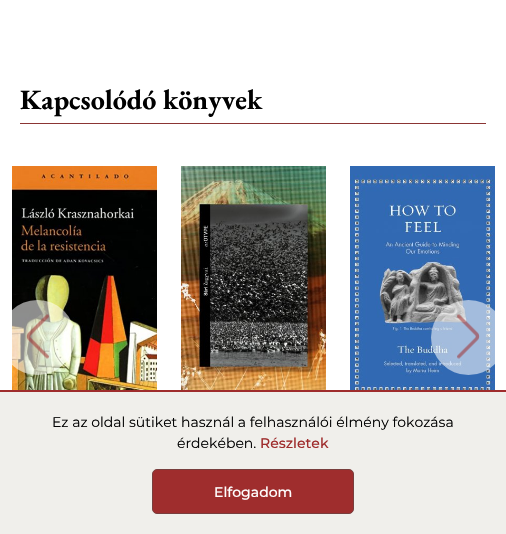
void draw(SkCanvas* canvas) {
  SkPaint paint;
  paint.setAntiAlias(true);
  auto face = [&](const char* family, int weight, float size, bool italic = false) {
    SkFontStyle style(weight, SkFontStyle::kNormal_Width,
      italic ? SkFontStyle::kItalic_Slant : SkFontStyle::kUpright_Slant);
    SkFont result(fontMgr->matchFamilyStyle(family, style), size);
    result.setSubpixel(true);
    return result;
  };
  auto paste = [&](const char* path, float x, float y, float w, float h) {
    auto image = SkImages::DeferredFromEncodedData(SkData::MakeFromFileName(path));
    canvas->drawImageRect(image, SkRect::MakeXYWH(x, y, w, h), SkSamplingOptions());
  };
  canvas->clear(0xffffffff);
  paint.setColor(0xff8b3534);
  canvas->drawRect(SkRect::MakeXYWH(20, 123, 466, 1), paint);
  paste("img/1.png", 12, 166, 145, 224);
  paste("img/2.png", 181, 166, 145, 224);
  paste("img/3.png", 350, 166, 145, 224);
  paint.setColor(0x8cffffff);
  canvas->drawCircle(37.5f, 337.5f, 37.5f, paint);
  paste("img/4.png", 26, 314, 23, 45);
  canvas->drawCircle(468.5f, 337.5f, 37.5f, paint);
  paste("img/5.png", 457, 314, 23, 45);
  paint.setColor(0xfff0efeb);
  canvas->drawRect(SkRect::MakeXYWH(0, 392, 506, 142), paint);
  paint.setColor(0xff9f2d2d);
  canvas->drawRect(SkRect::MakeXYWH(0, 390, 506, 2), paint);
  canvas->drawRoundRect(SkRect::MakeXYWH(152.5f, 469.5f, 201, 44), 4.5f, 4.5f, paint);
  paint.setStroke(true);
  paint.setStrokeWidth(1);
  paint.setColor(0xff783e3d);
  canvas->drawRoundRect(SkRect::MakeXYWH(152.5f, 469.5f, 201, 44), 4.5f, 4.5f, paint);
  auto f0 = face("EB Garamond", 700, 28);
  paint.setStroke(false);
  paint.setColor(0xff000000);
  canvas->drawString("Kapcsolódó könyvek", 20, 109, f0, paint);
  auto f1 = face("Montserrat", 400, 14);
  canvas->drawString("Ez az oldal sütiket használ a felhasználói élmény fokozása", 52, 427, f1, paint);
  canvas->drawString("érdekében.", 177, 448, f1, paint);
  auto f2 = face("Montserrat", 500, 14);
  paint.setColor(0xff9f2d2d);
  canvas->drawString("Részletek", 260, 448, f2, paint);
  paint.setColor(0xffffffff);
  canvas->drawString("Elfogadom", 214, 497, f2, paint);
}
